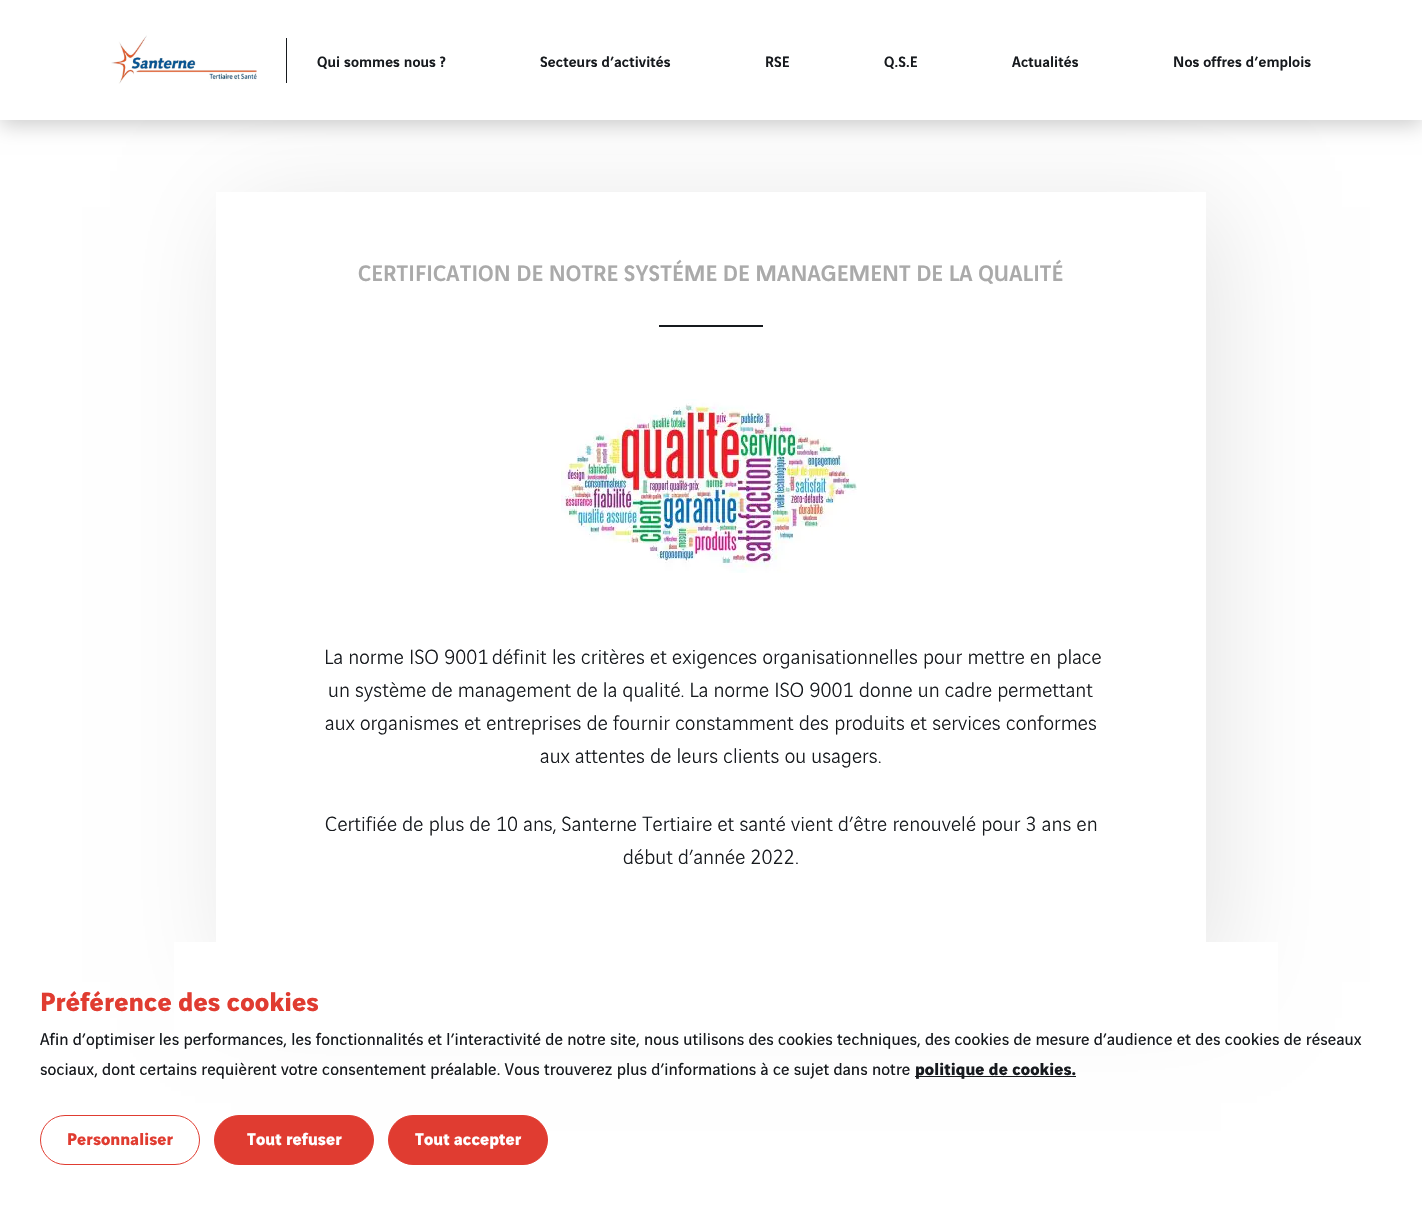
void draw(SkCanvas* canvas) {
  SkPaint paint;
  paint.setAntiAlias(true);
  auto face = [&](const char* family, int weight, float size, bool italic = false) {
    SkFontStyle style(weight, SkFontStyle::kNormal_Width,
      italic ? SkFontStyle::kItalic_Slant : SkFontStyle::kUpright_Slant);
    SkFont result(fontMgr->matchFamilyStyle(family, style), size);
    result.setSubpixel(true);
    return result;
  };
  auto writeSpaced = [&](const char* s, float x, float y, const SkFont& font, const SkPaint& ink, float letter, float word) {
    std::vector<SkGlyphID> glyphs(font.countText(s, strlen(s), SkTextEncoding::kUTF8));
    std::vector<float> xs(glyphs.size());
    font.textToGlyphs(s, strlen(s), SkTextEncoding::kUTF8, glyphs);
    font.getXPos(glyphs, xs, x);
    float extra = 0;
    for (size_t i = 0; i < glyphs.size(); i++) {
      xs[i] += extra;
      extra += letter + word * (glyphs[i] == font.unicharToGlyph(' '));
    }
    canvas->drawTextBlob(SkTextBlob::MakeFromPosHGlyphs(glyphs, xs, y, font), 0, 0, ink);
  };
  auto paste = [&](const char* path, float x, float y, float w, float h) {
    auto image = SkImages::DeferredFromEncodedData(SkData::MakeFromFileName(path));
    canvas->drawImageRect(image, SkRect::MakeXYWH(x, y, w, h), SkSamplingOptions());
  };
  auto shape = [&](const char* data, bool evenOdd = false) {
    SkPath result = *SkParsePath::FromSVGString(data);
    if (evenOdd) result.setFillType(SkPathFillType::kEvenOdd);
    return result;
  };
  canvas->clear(0xffffffff);
  paint.setColor(0x33000000);
  paint.setMaskFilter(SkMaskFilter::MakeBlur(kNormal_SkBlurStyle, 10));
  canvas->drawRect(SkRect::MakeXYWH(0, -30, 1422, 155), paint);
  paint.setMaskFilter(nullptr);
  canvas->save();
  canvas->clipPath(shape("M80 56H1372V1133H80ZM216 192H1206V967H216Z", true), true);
  paint.setColor(0x1a000000);
  paint.setMaskFilter(SkMaskFilter::MakeBlur(kNormal_SkBlurStyle, 50));
  canvas->drawRect(SkRect::MakeXYWH(231, 207, 990, 775), paint);
  paint.setMaskFilter(nullptr);
  canvas->restore();
  paint.setColor(0xffffffff);
  canvas->drawRect(SkRect::MakeXYWH(0, 0, 1422, 120), paint);
  paste("img/1.png", 111, 35, 146, 49);
  paint.setColor(0xff171a1e);
  canvas->drawRect(SkRect::MakeXYWH(286, 38, 1, 45), paint);
  canvas->drawRect(SkRect::MakeXYWH(659, 325, 104, 2), paint);
  paste("img/2.png", 561, 399, 296, 174);
  paint.setColor(0xffffffff);
  canvas->drawRect(SkRect::MakeXYWH(174, 942, 1104, 104), paint);
  paint.setColor(0xff171a1e);
  canvas->drawRect(SkRect::MakeXYWH(915, 1076, 161, 1), paint);
  paint.setStroke(true);
  paint.setStrokeWidth(1);
  paint.setColor(0xffe03c31);
  canvas->drawRoundRect(SkRect::MakeXYWH(40.5f, 1115.5f, 159, 49), 24.5f, 24.5f, paint);
  paint.setStroke(false);
  canvas->drawRoundRect(SkRect::MakeXYWH(214.5f, 1115.5f, 159, 49), 24.5f, 24.5f, paint);
  paint.setStroke(true);
  canvas->drawRoundRect(SkRect::MakeXYWH(214.5f, 1115.5f, 159, 49), 24.5f, 24.5f, paint);
  paint.setStroke(false);
  canvas->drawRoundRect(SkRect::MakeXYWH(388.5f, 1115.5f, 159, 49), 24.5f, 24.5f, paint);
  paint.setStroke(true);
  canvas->drawRoundRect(SkRect::MakeXYWH(388.5f, 1115.5f, 159, 49), 24.5f, 24.5f, paint);
  auto f0 = face("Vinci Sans", 500, 16);
  paint.setStroke(false);
  paint.setColor(0xff171a1e);
  {
    const struct { const char* s; float x, y; } items[] = {
      {"Qui sommes nous ?", 317, 67},
      {"Secteurs d’activités", 540, 67},
      {"RSE", 765, 67},
      {"Q.S.E", 884, 67},
      {"Actualités", 1012, 67},
      {"Nos offres d’emplois", 1173, 67},
    };
    for (auto [s, x, y] : items) {
      writeSpaced(s, x, y, f0, paint, 0.1f, 0);
    }
  }
  auto f1 = face("Vinci Sans", 500, 24);
  paint.setColor(0xffaaaaaa);
  writeSpaced("CERTIFICATION DE NOTRE SYSTÉME DE MANAGEMENT DE LA QUALITÉ", 358, 281, f1, paint, 0.1f, 0);
  auto f2 = face("Vinci Sans", 300, 22);
  paint.setColor(0xff171a1e);
  {
    const struct { const char* s; float x, y; } items[] = {
      {"La norme ISO 9001", 324, 664},
      {"définit les critères et exigences organisationnelles pour mettre en place", 492, 664},
      {"un système de management de la qualité. La norme ISO 9001 donne un cadre permettant", 328, 697},
      {"aux organismes et entreprises de fournir constamment des produits et services conformes", 325, 730},
      {"aux attentes de leurs clients ou usagers.", 540, 763},
      {"Certifiée de plus de 10 ans, Santerne Tertiaire et santé vient d’être renouvelé pour 3 ans en", 325, 831},
      {"début d’année 2022.", 623, 864},
    };
    for (auto [s, x, y] : items) {
      writeSpaced(s, x, y, f2, paint, 0.1f, 0);
    }
  }
  auto f3 = face("Vinci Sans", 700, 28);
  paint.setColor(0xffe03c31);
  writeSpaced("Préférence des cookies", 40, 1011, f3, paint, 0.1f, 0);
  auto f4 = face("Vinci Sans", 400, 18);
  paint.setColor(0xff171a1e);
  writeSpaced("Afin d’optimiser les performances, les fonctionnalités et l’interactivité de notre site, nous utilisons des cookies techniques, des cookies de mesure d’audience et des cookies de réseaux", 40, 1045, f4, paint, 0.1f, 0);
  writeSpaced("sociaux, dont certains requièrent votre consentement préalable. Vous trouverez plus d’informations à ce sujet dans notre", 40, 1075, f4, paint, 0.1f, 0);
  auto f5 = face("Vinci Sans", 700, 18);
  writeSpaced("politique de cookies.", 915, 1075, f5, paint, 0.1f, 0);
  paint.setColor(0xffe03c31);
  writeSpaced("Personnaliser", 67, 1145, f5, paint, 0.1f, 0);
  paint.setColor(0xffffffff);
  writeSpaced("Tout refuser", 247, 1145, f5, paint, 0.1f, 0);
  writeSpaced("Tout accepter", 415, 1145, f5, paint, 0.1f, 0);
}
